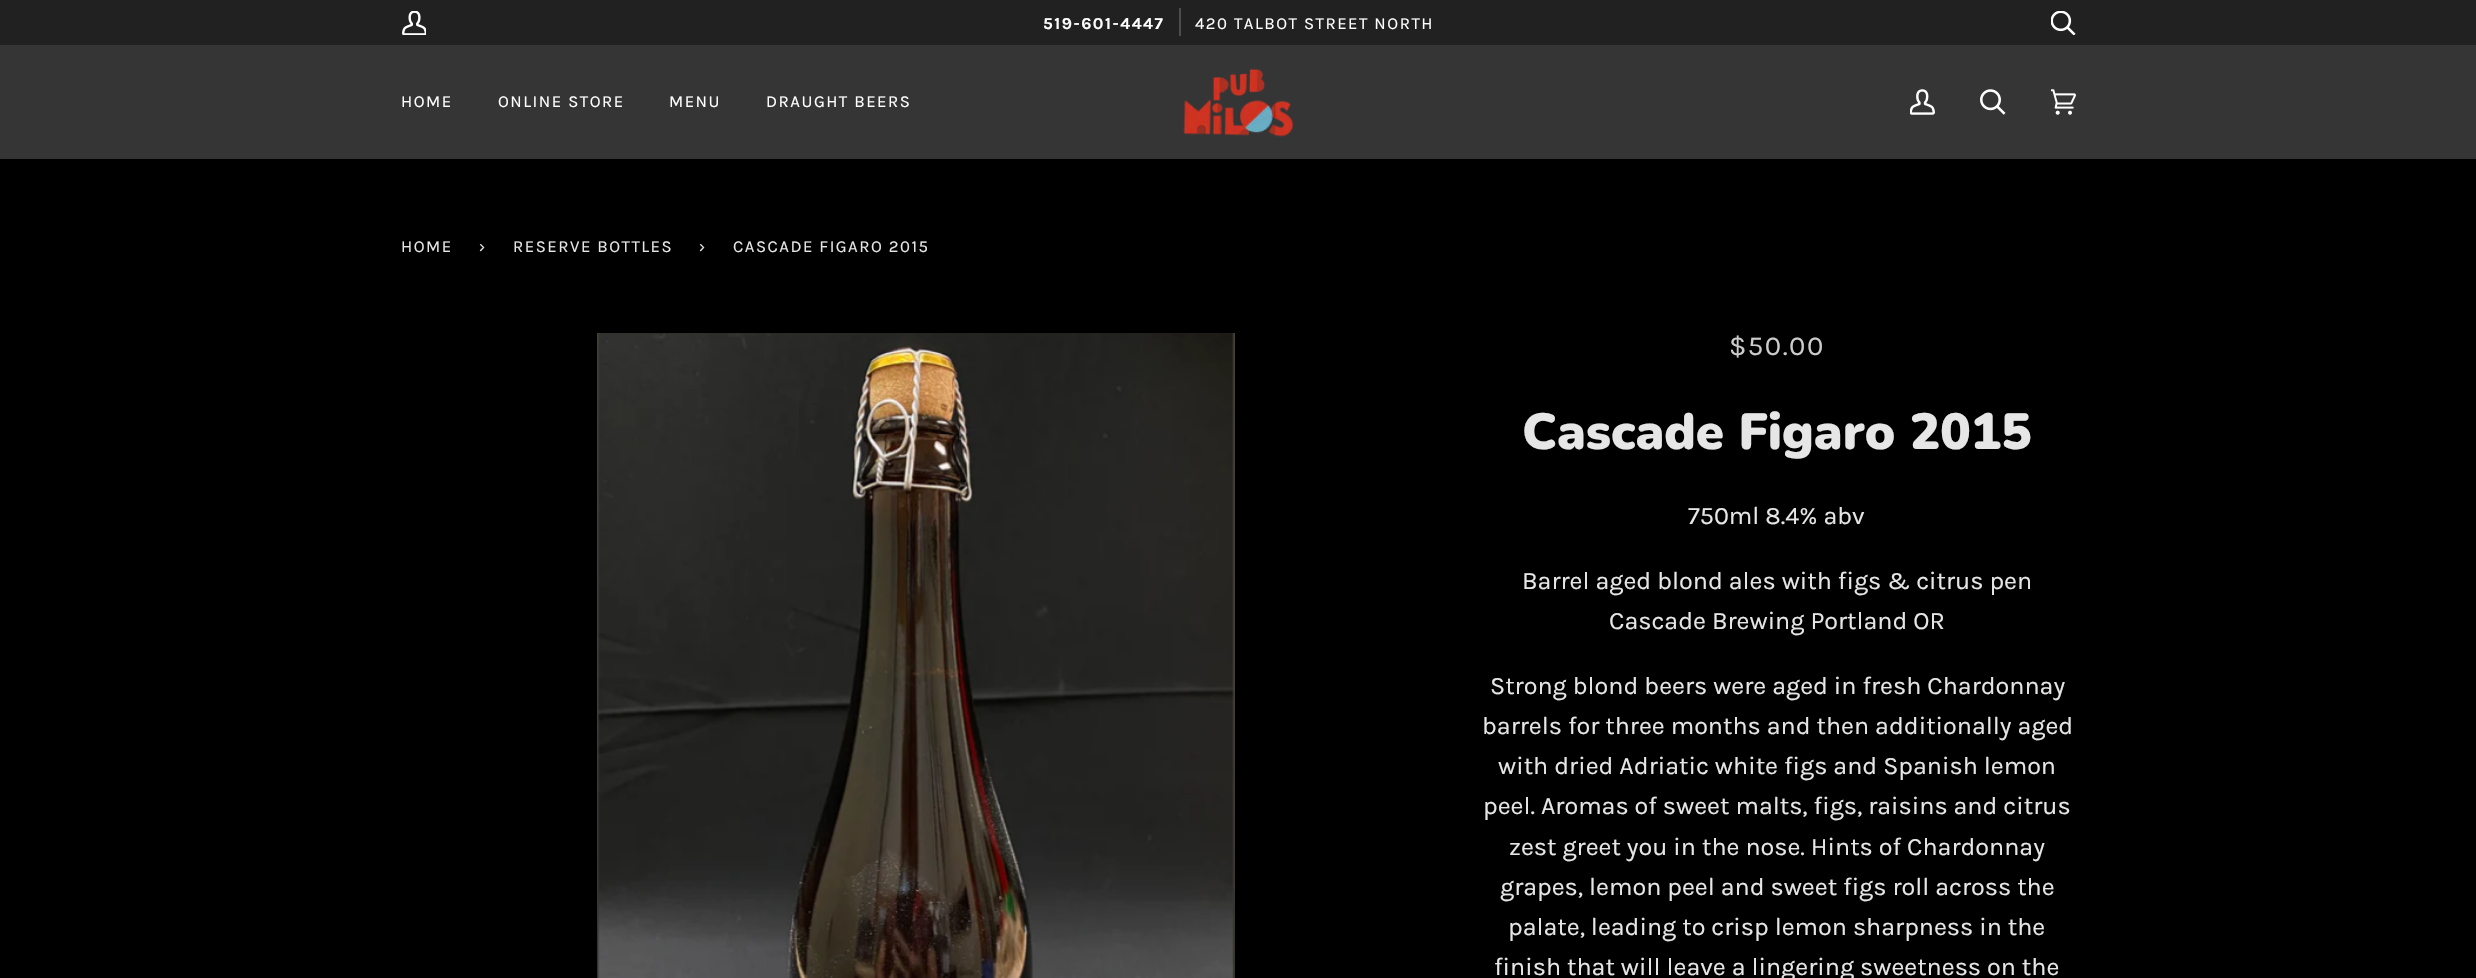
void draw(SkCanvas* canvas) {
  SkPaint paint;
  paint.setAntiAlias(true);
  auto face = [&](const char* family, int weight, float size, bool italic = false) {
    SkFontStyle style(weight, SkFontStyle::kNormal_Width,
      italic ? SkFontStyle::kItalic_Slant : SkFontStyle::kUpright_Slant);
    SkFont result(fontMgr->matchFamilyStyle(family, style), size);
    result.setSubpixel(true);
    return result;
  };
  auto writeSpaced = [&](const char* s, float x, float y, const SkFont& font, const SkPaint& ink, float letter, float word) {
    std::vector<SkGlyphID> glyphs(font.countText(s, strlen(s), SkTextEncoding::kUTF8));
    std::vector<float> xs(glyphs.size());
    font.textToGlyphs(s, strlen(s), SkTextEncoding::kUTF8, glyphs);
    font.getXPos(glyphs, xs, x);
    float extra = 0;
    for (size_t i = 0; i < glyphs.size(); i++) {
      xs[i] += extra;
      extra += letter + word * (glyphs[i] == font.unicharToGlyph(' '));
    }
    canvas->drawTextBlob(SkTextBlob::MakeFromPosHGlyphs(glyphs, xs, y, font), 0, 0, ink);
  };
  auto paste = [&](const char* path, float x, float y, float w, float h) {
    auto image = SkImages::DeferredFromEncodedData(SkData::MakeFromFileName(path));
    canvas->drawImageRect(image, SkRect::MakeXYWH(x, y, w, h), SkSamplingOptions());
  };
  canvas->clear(0xff000000);
  paint.setColor(0xff212121);
  canvas->drawRect(SkRect::MakeXYWH(0, 0, 2476, 45), paint);
  paste("img/1.png", 402, 11, 24, 24);
  paint.setColor(0xff4d4d4d);
  canvas->drawRect(SkRect::MakeXYWH(1179, 8, 2, 28), paint);
  paste("img/2.png", 2051, 11, 25, 24);
  paint.setColor(0xff353535);
  canvas->drawRect(SkRect::MakeXYWH(0, 45, 2476, 114), paint);
  paste("img/3.png", 1183, 68, 111, 69);
  paste("img/4.png", 1910, 89, 25, 26);
  paste("img/5.png", 1980, 89, 26, 26);
  paste("img/6.png", 2051, 89, 25, 26);
  paste("img/7.png", 597, 333, 638, 645);
  paste("img/8.png", 598, 333, 636, 645);
  auto f0 = face("Karla", 700, 16.75f);
  paint.setColor(0xffffffff);
  writeSpaced("519-601-4447", 1043, 29, f0, paint, 1.5f, 0);
  auto f1 = face("Karla", 400, 16.75f);
  {
    const struct { const char* s; float x, y; } items[] = {
      {"420 TALBOT STREET NORTH", 1195, 29},
      {"HOME", 401, 107},
      {"ONLINE STORE", 498, 107},
      {"MENU", 669, 107},
      {"DRAUGHT BEERS", 766, 107},
    };
    for (auto [s, x, y] : items) {
      writeSpaced(s, x, y, f1, paint, 1.5f, 0);
    }
  }
  paint.setColor(0xffe6e6e6);
  {
    const struct { const char* s; float x, y; } items[] = {
      {"HOME", 401, 252},
      {"›", 479, 252},
      {"RESERVE BOTTLES", 513, 252},
      {"›", 699, 252},
      {"CASCADE FIGARO 2015", 733, 252},
    };
    for (auto [s, x, y] : items) {
      writeSpaced(s, x, y, f1, paint, 1.5f, 0);
    }
  }
  auto f2 = face("Karla", 400, 27.5f);
  paint.setColor(0xffcccccc);
  writeSpaced("$50.00", 1729, 355, f2, paint, 1.5f, 0);
  auto f3 = face("Nunito", 900, 50.75f);
  paint.setColor(0xffe6e6e6);
  canvas->drawString("Cascade Figaro 2015", 1522, 449, f3, paint);
  auto f4 = face("Karla", 400, 25.1f);
  {
    const struct { const char* s; float x, y; } items[] = {
      {"750ml 8.4% abv", 1688, 524},
      {"Barrel aged blond ales with figs & citrus pen", 1522, 589},
      {"Cascade Brewing Portland OR", 1609, 629},
      {"Strong blond beers were aged in fresh Chardonnay", 1490, 694},
      {"barrels for three months and then additionally aged", 1482, 734},
      {"with dried Adriatic white figs and Spanish lemon", 1498, 774},
      {"peel. Aromas of sweet malts, figs, raisins and citrus", 1483, 814},
      {"zest greet you in the nose. Hints of Chardonnay", 1509, 855},
      {"grapes, lemon peel and sweet figs roll across the", 1500, 895},
      {"palate, leading to crisp lemon sharpness in the", 1508, 935},
      {"finish that will leave a lingering sweetness on the", 1494, 975},
    };
    for (auto [s, x, y] : items) {
      canvas->drawString(s, x, y, f4, paint);
    }
  }
}
